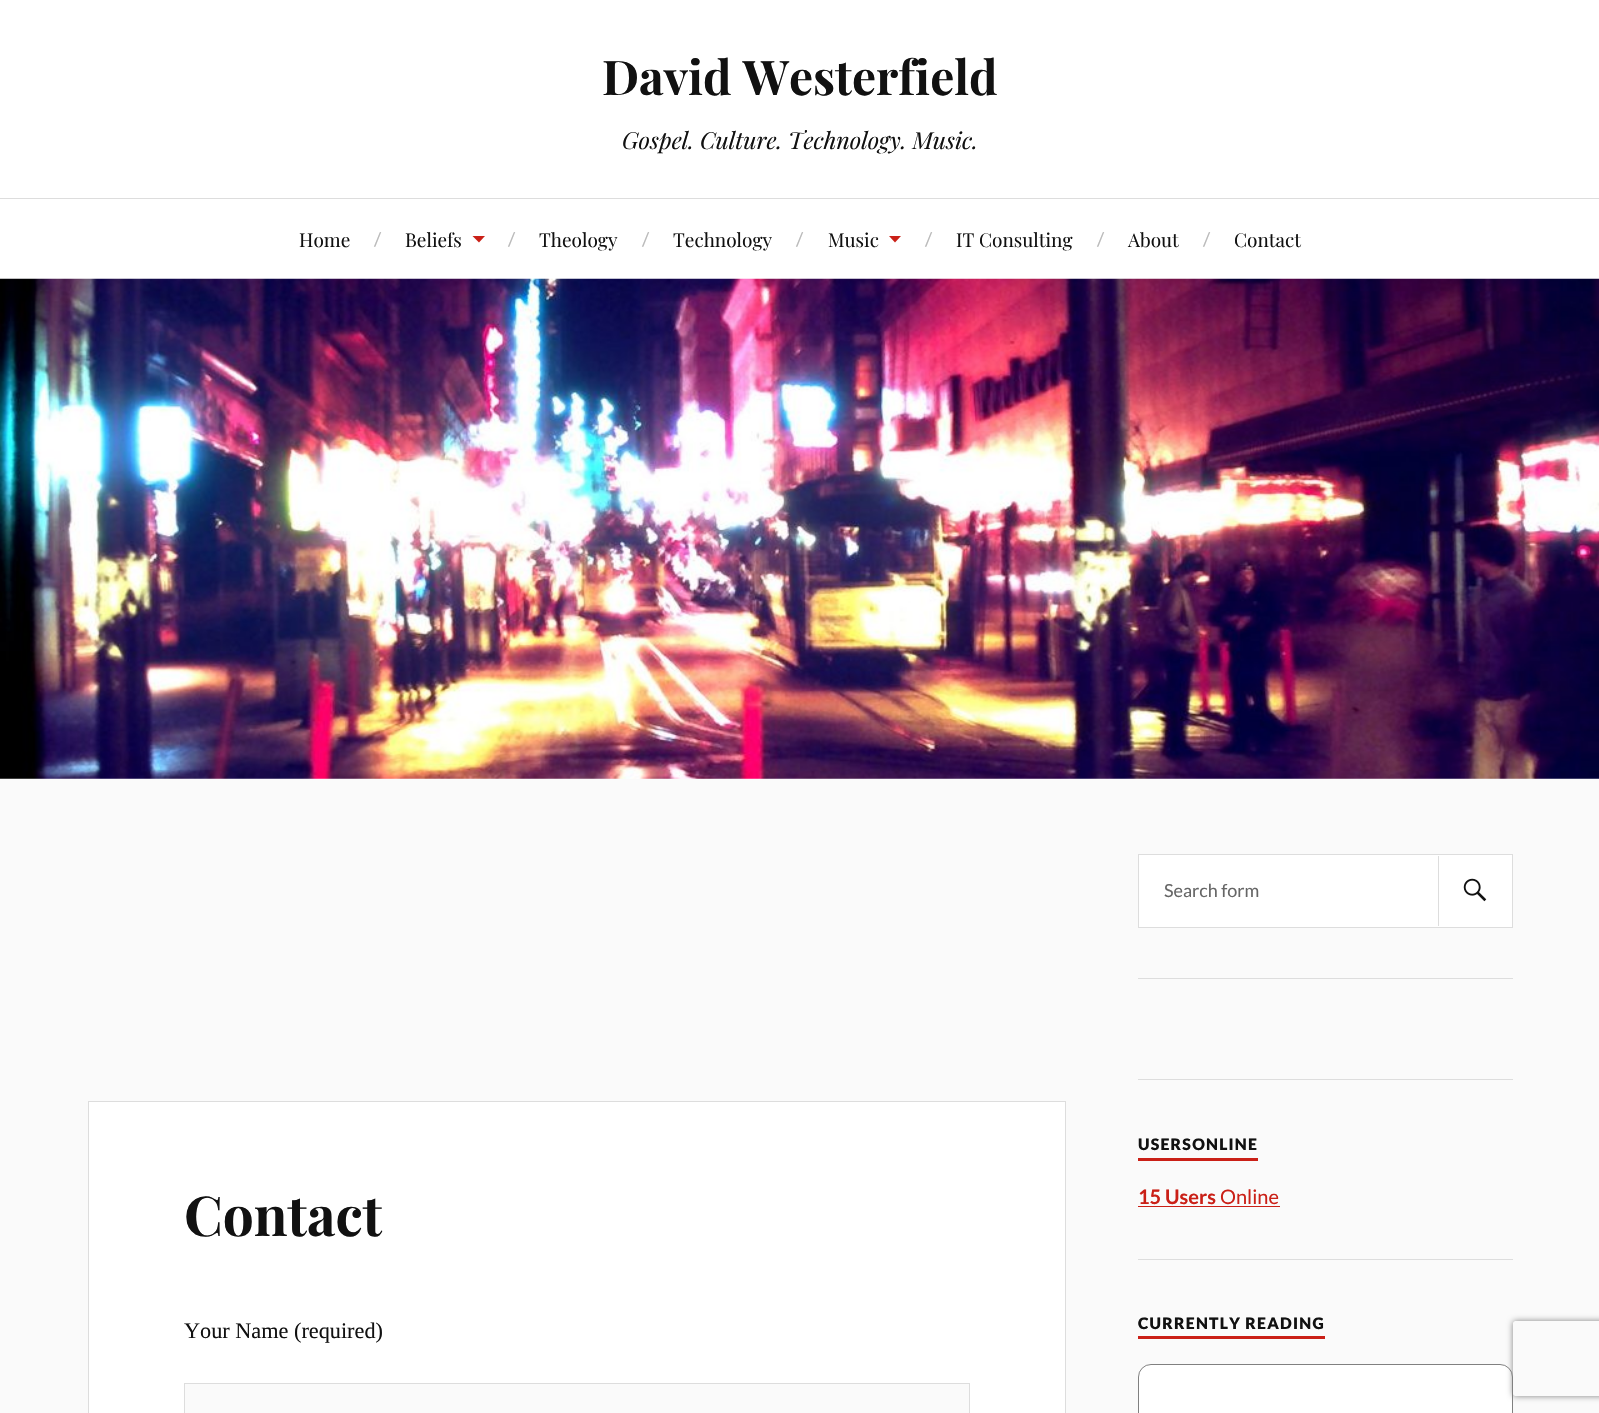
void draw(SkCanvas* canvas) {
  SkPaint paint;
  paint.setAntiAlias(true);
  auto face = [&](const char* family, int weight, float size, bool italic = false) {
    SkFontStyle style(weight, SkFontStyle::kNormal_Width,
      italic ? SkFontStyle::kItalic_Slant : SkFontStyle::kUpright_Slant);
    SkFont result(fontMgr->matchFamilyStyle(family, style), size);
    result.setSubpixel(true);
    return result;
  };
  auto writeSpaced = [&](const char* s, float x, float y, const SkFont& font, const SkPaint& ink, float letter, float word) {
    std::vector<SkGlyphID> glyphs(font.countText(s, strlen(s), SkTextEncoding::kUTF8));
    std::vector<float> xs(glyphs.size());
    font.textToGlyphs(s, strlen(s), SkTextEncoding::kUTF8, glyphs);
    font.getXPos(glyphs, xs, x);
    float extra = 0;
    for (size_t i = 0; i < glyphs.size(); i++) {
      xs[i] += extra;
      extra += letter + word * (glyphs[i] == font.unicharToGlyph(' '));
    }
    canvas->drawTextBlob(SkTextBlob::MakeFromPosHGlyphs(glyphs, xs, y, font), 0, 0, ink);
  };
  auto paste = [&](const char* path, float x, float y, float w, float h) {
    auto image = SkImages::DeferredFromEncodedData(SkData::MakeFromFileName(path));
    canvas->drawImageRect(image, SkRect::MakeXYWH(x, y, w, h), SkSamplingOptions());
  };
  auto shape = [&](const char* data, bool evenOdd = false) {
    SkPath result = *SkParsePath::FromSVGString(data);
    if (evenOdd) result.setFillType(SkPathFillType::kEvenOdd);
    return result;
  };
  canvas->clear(0xfffafafa);
  {
    const struct { float x, y, w, h; SkColor color; } items[] = {
      {0, 0, 1599, 198, 0xffffffff},
      {0, 199, 1599, 80, 0xffffffff},
      {0, 198, 1599, 1, 0xffdddddd},
    };
    for (auto [x, y, w, h, color] : items) {
      paint.setColor(color);
      canvas->drawRect(SkRect::MakeXYWH(x, y, w, h), paint);
    }
  }
  paint.setColor(0xffca2017);
  canvas->drawPath(shape("M472.5 236H485L479 242.5Z"), paint);
  canvas->drawPath(shape("M889 236H901L895 242.5Z"), paint);
  paste("img/1.png", 0, 278, 1599, 501);
  paint.setColor(0xffffffff);
  canvas->drawRect(SkRect::MakeXYWH(88.5f, 1101.5f, 977, 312), paint);
  paint.setStroke(true);
  paint.setStrokeWidth(1);
  paint.setColor(0xffdddddd);
  canvas->drawRect(SkRect::MakeXYWH(88.5f, 1101.5f, 977, 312), paint);
  paint.setStroke(false);
  paint.setColor(0xfffafafa);
  canvas->drawRect(SkRect::MakeXYWH(184.5f, 1383.5f, 785, 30), paint);
  paint.setStroke(true);
  paint.setColor(0xffdddddd);
  canvas->drawRect(SkRect::MakeXYWH(184.5f, 1383.5f, 785, 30), paint);
  paint.setStroke(false);
  paint.setColor(0xffffffff);
  canvas->drawRect(SkRect::MakeXYWH(1138.5f, 854.5f, 374, 73), paint);
  paint.setStroke(true);
  paint.setColor(0xffdddddd);
  canvas->drawRect(SkRect::MakeXYWH(1138.5f, 854.5f, 374, 73), paint);
  paint.setStroke(false);
  canvas->drawRect(SkRect::MakeXYWH(1438, 856, 1, 70), paint);
  paste("img/2.png", 1463, 878, 24, 24);
  {
    const struct { float x, y, w, h; SkColor color; } items[] = {
      {1138, 978, 375, 1, 0xffdddddd},
      {1138, 1079, 375, 1, 0xffdddddd},
      {1138, 1158, 120, 3, 0xffca2017},
      {1138, 1206, 142, 1, 0xffca2017},
      {1138, 1259, 375, 1, 0xffdddddd},
      {1138, 1336, 187, 3, 0xffca2017},
    };
    for (auto [x, y, w, h, color] : items) {
      paint.setColor(color);
      canvas->drawRect(SkRect::MakeXYWH(x, y, w, h), paint);
    }
  }
  paint.setColor(0xffffffff);
  canvas->drawRoundRect(SkRect::MakeXYWH(1138.5f, 1364.5f, 374, 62), 12.5f, 12.5f, paint);
  paint.setStroke(true);
  paint.setColor(0xff808080);
  canvas->drawRoundRect(SkRect::MakeXYWH(1138.5f, 1364.5f, 374, 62), 12.5f, 12.5f, paint);
  canvas->save();
  canvas->clipPath(shape("M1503 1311H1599V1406H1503ZM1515.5 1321H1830.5C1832 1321 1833 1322 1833 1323.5V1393.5C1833 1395 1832 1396 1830.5 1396H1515.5C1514 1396 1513 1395 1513 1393.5V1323.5C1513 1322 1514 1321 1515.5 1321Z", true), true);
  paint.setStroke(false);
  paint.setMaskFilter(SkMaskFilter::MakeBlur(kNormal_SkBlurStyle, 3));
  canvas->drawRoundRect(SkRect::MakeXYWH(1513, 1321, 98, 75), 2.5f, 2.5f, paint);
  paint.setMaskFilter(nullptr);
  canvas->restore();
  auto f0 = face("Playfair Display", 700, 47.75f);
  paint.setColor(0xff111111);
  canvas->drawString("David Westerfield", 602, 95, f0, paint);
  auto f1 = face("Playfair Display", 400, 23.4f, true);
  canvas->drawString("Gospel. Culture. Technology. Music.", 622, 149, f1, paint);
  auto f2 = face("Playfair Display", 400, 19);
  canvas->drawString("Home", 299, 247, f2, paint);
  auto f3 = face("Lato", 400, 19);
  paint.setColor(0xffbbbbbb);
  canvas->drawString("/", 374, 246, f3, paint);
  paint.setColor(0xff111111);
  canvas->drawString("Beliefs", 405, 247, f2, paint);
  paint.setColor(0xffbbbbbb);
  canvas->drawString("/", 508, 246, f3, paint);
  paint.setColor(0xff111111);
  canvas->drawString("Theology", 539, 247, f2, paint);
  paint.setColor(0xffbbbbbb);
  canvas->drawString("/", 642, 246, f3, paint);
  paint.setColor(0xff111111);
  canvas->drawString("Technology", 673, 247, f2, paint);
  paint.setColor(0xffbbbbbb);
  canvas->drawString("/", 796, 246, f3, paint);
  paint.setColor(0xff111111);
  canvas->drawString("Music", 828, 247, f2, paint);
  paint.setColor(0xffbbbbbb);
  canvas->drawString("/", 925, 246, f3, paint);
  paint.setColor(0xff111111);
  canvas->drawString("IT Consulting", 956, 247, f2, paint);
  paint.setColor(0xffbbbbbb);
  canvas->drawString("/", 1097, 246, f3, paint);
  paint.setColor(0xff111111);
  canvas->drawString("About", 1128, 247, f2, paint);
  paint.setColor(0xffbbbbbb);
  canvas->drawString("/", 1203, 246, f3, paint);
  paint.setColor(0xff111111);
  canvas->drawString("Contact", 1234, 247, f2, paint);
  auto f4 = face("Playfair Display", 700, 55);
  canvas->drawString("Contact", 184, 1236, f4, paint);
  auto f5 = face("Liberation Serif", 400, 22.25f);
  canvas->drawString("Your Name (required)", 184, 1338, f5, paint);
  auto f6 = face("Lato", 400, 18);
  paint.setColor(0xff666666);
  canvas->drawString("Search form", 1164, 897, f6, paint);
  auto f7 = face("Lato", 900, 15.75f);
  paint.setColor(0xff111111);
  writeSpaced("USERSONLINE", 1138, 1150, f7, paint, 1.25f, 0);
  auto f8 = face("Lato", 700, 20);
  paint.setColor(0xffca2017);
  canvas->drawString("15 Users", 1138, 1204, f8, paint);
  auto f9 = face("Lato", 400, 20);
  canvas->drawString("Online", 1220, 1204, f9, paint);
  paint.setColor(0xff111111);
  writeSpaced("CURRENTLY READING", 1138, 1329, f7, paint, 1.25f, 0);
}
